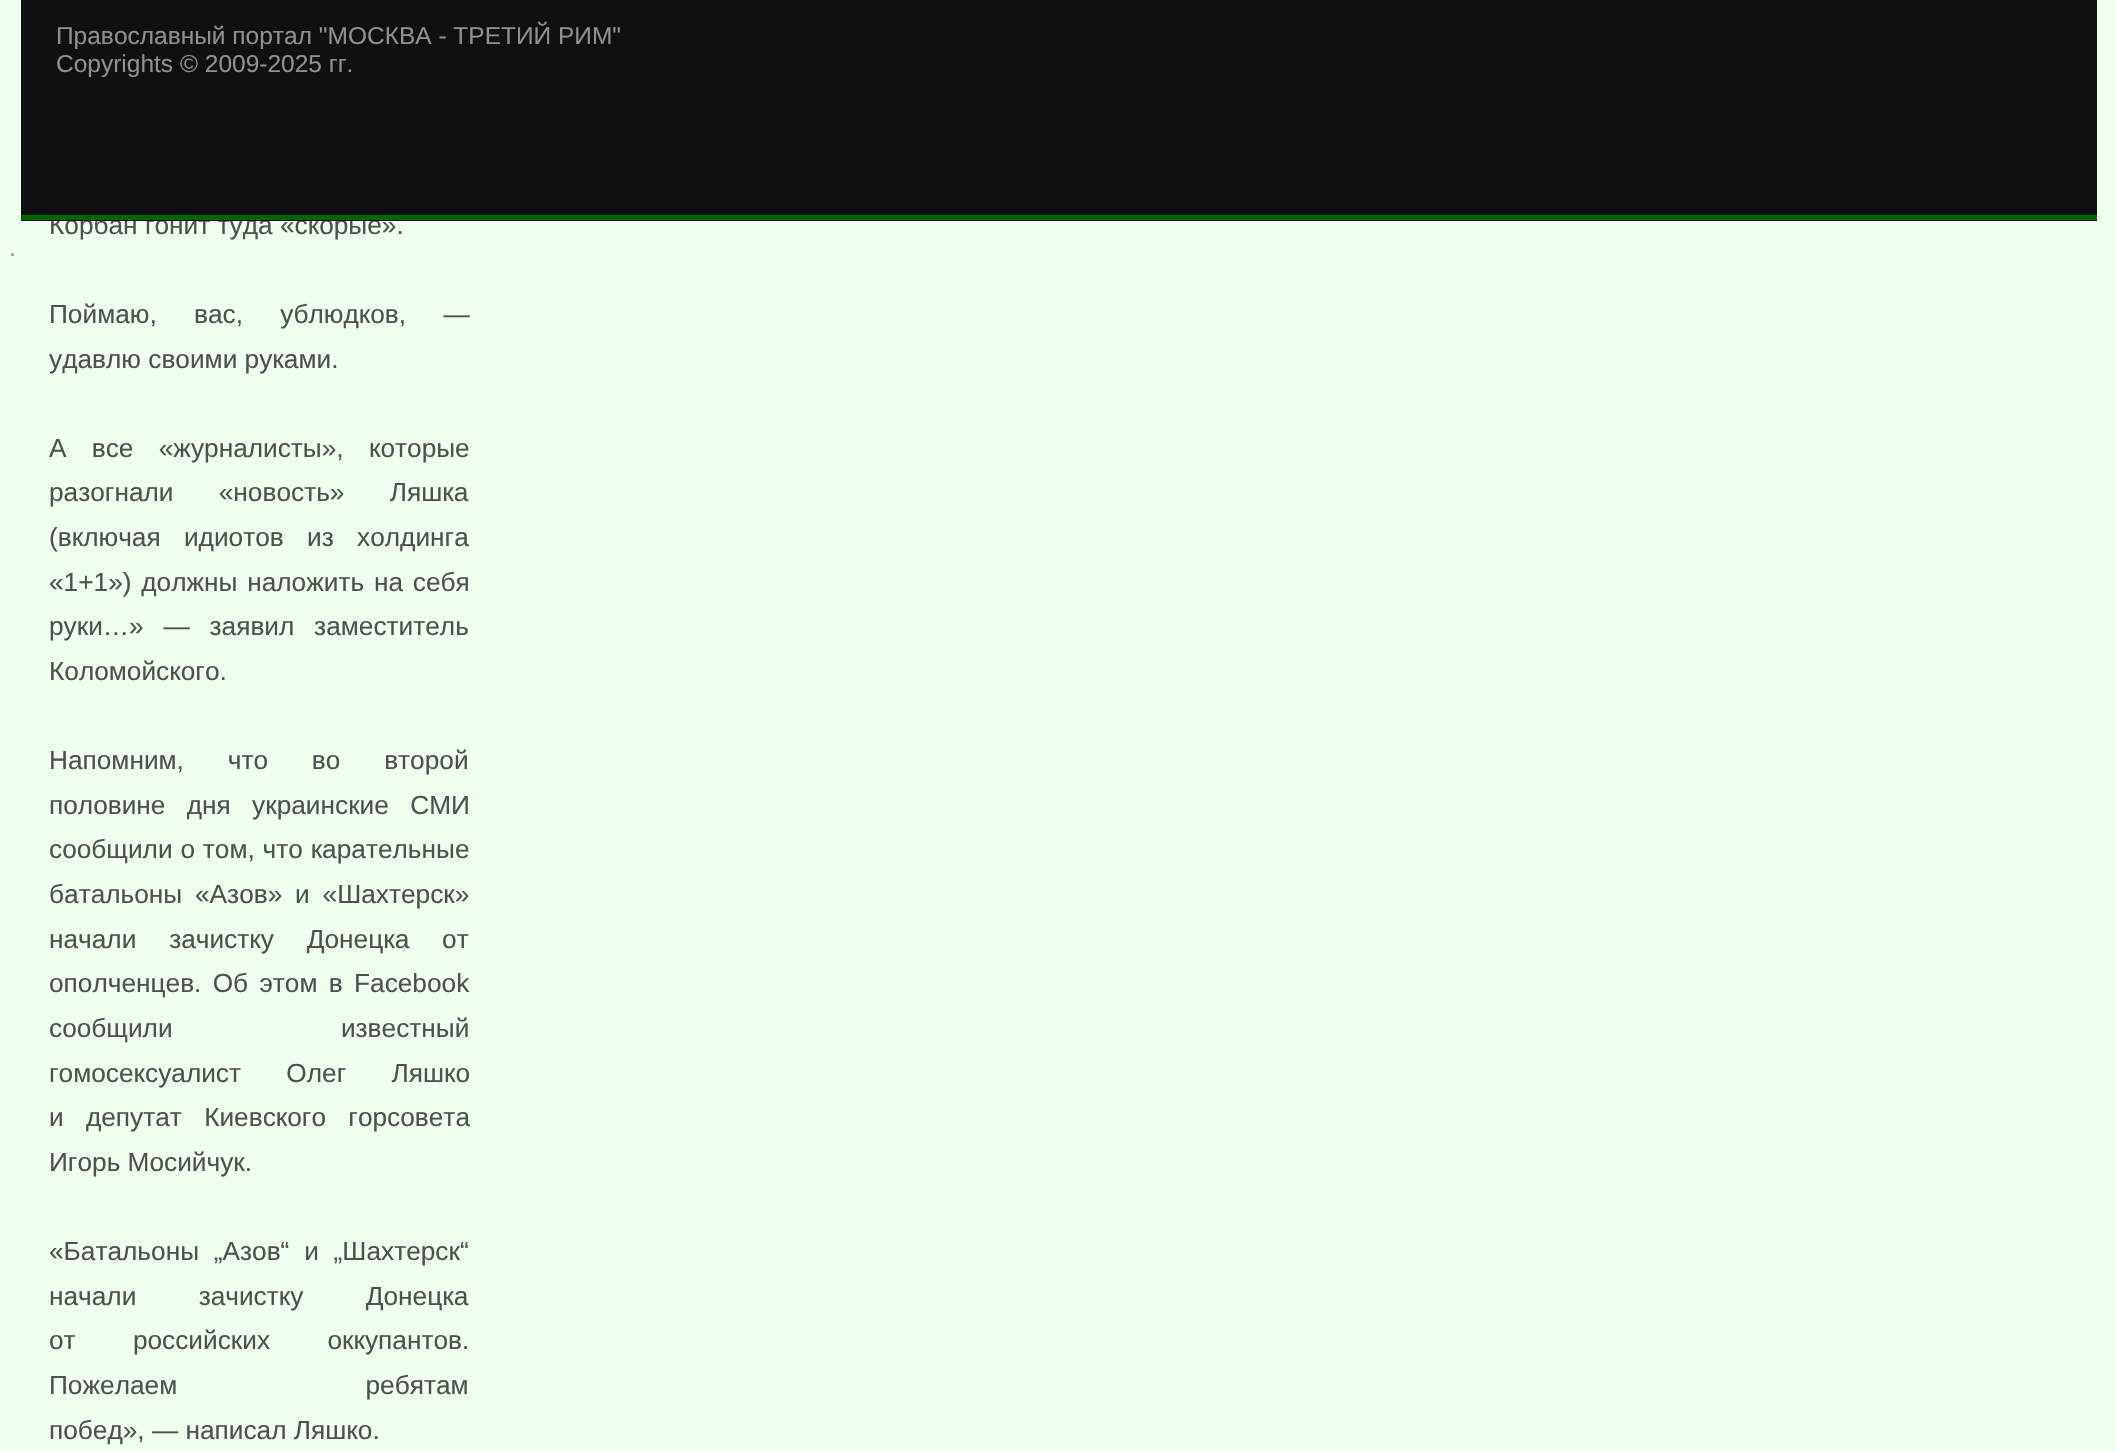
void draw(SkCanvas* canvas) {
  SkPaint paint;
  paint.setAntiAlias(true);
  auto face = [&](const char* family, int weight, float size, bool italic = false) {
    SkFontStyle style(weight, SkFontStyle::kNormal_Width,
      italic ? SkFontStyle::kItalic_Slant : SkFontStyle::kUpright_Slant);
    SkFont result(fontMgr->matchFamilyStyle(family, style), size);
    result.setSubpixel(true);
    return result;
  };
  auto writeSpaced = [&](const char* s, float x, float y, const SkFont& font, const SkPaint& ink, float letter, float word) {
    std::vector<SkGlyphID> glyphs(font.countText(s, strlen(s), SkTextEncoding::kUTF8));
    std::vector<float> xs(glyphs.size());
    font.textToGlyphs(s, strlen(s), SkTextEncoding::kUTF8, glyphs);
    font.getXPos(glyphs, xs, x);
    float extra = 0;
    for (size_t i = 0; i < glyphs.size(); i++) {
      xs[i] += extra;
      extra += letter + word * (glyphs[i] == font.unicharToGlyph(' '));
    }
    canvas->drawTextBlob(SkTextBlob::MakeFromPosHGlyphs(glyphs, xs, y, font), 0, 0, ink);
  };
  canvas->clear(0xffeeffed);
  auto f0 = face("Liberation Sans", 400, 24.5f);
  paint.setColor(0xff909090);
  canvas->drawString(".", 9, 256, f0, paint);
  auto f1 = face("Liberation Sans", 400, 26.25f);
  paint.setColor(0xff505050);
  canvas->drawString("Корбан гонит туда «скорые».", 49, 234, f1, paint);
  paint.setColor(0xff101010);
  canvas->drawRect(SkRect::MakeXYWH(21, 0, 2076, 221), paint);
  paint.setColor(0xff909090);
  canvas->drawString("Copyrights © 2009-2025 гг.", 56, 72, f0, paint);
  canvas->drawString("Православный портал \"МОСКВА - ТРЕТИЙ РИМ\"", 56, 44, f0, paint);
  paint.setColor(0xff006600);
  canvas->drawRect(SkRect::MakeXYWH(21, 215, 2076, 5), paint);
  paint.setColor(0xff505050);
  writeSpaced("Поймаю, вас, ублюдков, —", 49, 323, f1, paint, 0, 30);
  canvas->drawString("удавлю своими руками.", 49, 368, f1, paint);
  writeSpaced("А все «журналисты», которые", 49, 457, f1, paint, 0, 18);
  writeSpaced("разогнали «новость» Ляшка", 49, 501, f1, paint, 0, 38);
  writeSpaced("(включая идиотов из холдинга", 49, 546, f1, paint, 0, 16);
  writeSpaced("«1+1») должны наложить на себя", 49, 591, f1, paint, 0, 2.5f);
  writeSpaced("руки…» — заявил заместитель", 49, 635, f1, paint, 0, 12.5f);
  canvas->drawString("Коломойского.", 49, 680, f1, paint);
  writeSpaced("Напомним, что во второй", 49, 769, f1, paint, 0, 36.5f);
  writeSpaced("половине дня украинские СМИ", 49, 814, f1, paint, 0, 14);
  writeSpaced("сообщили о том, что карательные", 49, 858, f1, paint, 0, 0.5f);
  writeSpaced("батальоны «Азов» и «Шахтерск»", 49, 903, f1, paint, 0, 5.5f);
  writeSpaced("начали зачистку Донецка от", 49, 948, f1, paint, 0, 25.5f);
  writeSpaced("ополченцев. Об этом в Facebook", 49, 992, f1, paint, 0, 4);
  writeSpaced("сообщили известный", 49, 1037, f1, paint, 0, 161);
  writeSpaced("гомосексуалист Олег Ляшко", 49, 1082, f1, paint, 0, 38);
  writeSpaced("и депутат Киевского горсовета", 49, 1126, f1, paint, 0, 15);
  canvas->drawString("Игорь Мосийчук.", 49, 1171, f1, paint);
  writeSpaced("«Батальоны „Азов“ и „Шахтерск“", 49, 1260, f1, paint, 0, 7.5f);
  writeSpaced("начали зачистку Донецка", 49, 1305, f1, paint, 0, 55);
  writeSpaced("от российских оккупантов.", 49, 1349, f1, paint, 0, 50);
  writeSpaced("Пожелаем ребятам", 49, 1394, f1, paint, 0, 181);
  canvas->drawString("побед», — написал Ляшко.", 49, 1439, f1, paint);
}
